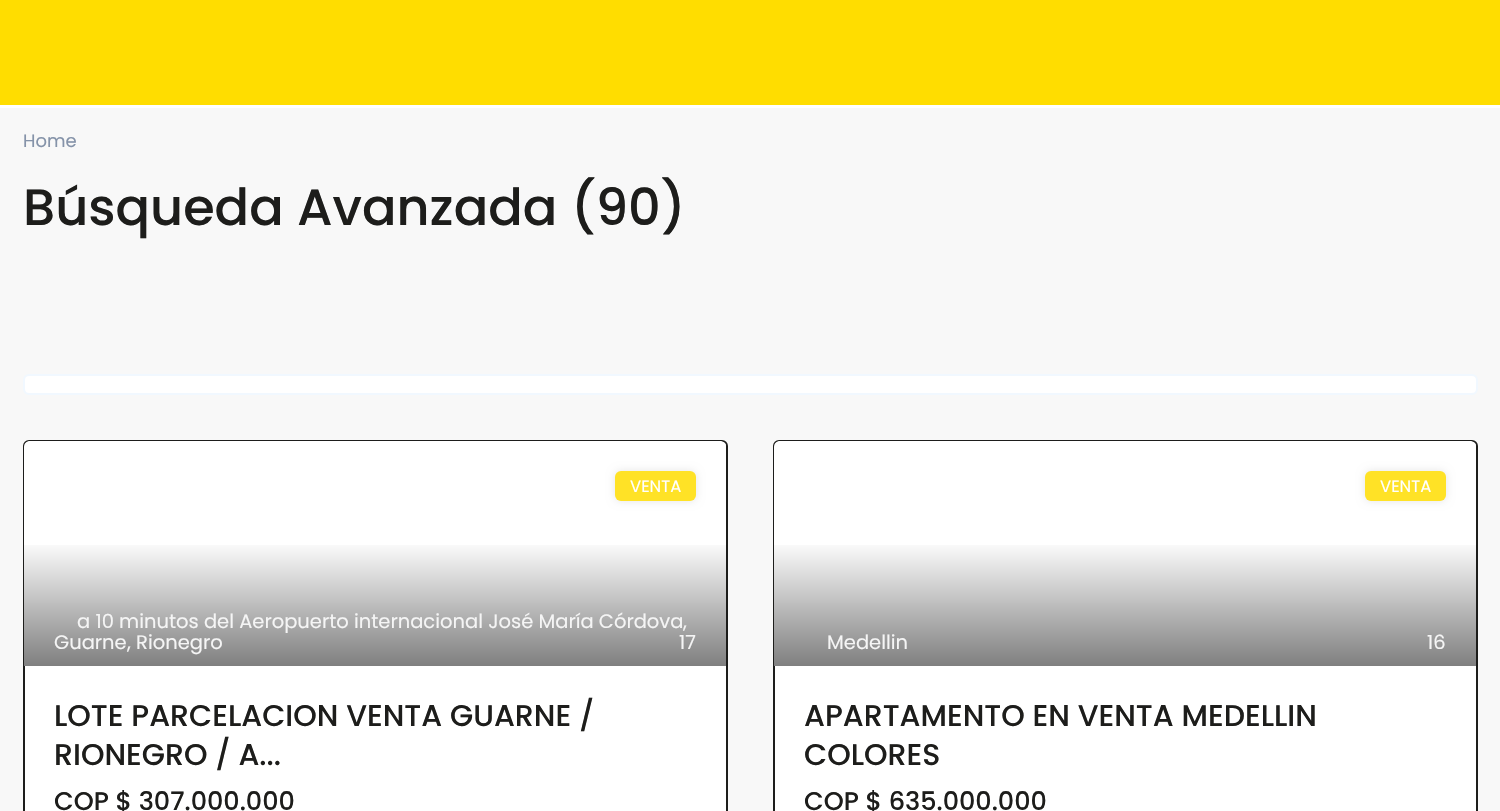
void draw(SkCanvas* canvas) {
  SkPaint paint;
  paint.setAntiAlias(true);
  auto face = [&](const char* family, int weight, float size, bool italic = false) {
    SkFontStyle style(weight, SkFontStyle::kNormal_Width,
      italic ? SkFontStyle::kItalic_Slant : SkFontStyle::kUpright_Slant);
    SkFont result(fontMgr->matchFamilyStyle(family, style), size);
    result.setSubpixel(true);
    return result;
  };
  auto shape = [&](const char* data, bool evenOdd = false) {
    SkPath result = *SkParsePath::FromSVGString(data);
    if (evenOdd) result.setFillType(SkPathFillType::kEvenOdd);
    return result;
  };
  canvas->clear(0xffffffff);
  paint.setColor(0xffffdd00);
  canvas->drawRect(SkRect::MakeXYWH(0, 0, 1500, 105), paint);
  paint.setColor(0xfff8f8f8);
  canvas->drawRect(SkRect::MakeXYWH(0, 108, 1500, 703), paint);
  paint.setColor(0xffffffff);
  canvas->drawRoundRect(SkRect::MakeXYWH(24, 375, 1453, 19), 5, 5, paint);
  paint.setStroke(true);
  paint.setStrokeWidth(2);
  paint.setColor(0xfff1f8ff);
  canvas->drawRoundRect(SkRect::MakeXYWH(24, 375, 1453, 19), 5, 5, paint);
  paint.setStroke(false);
  paint.setColor(0xffffffff);
  canvas->drawRoundRect(SkRect::MakeXYWH(24, 441, 703, 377), 5, 5, paint);
  paint.setStroke(true);
  paint.setColor(0xff1d1d1b);
  canvas->drawRoundRect(SkRect::MakeXYWH(24, 441, 703, 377), 5, 5, paint);
  paint.setStroke(false);
  paint.setColor(0xffffffff);
  canvas->drawPath(shape("M30 441H720C723.5 441 726 443.5 726 447V666H24V447C24 443.5 26.5 441 30 441Z"), paint);
  paint.setColor(0x1a000000);
  paint.setMaskFilter(SkMaskFilter::MakeBlur(kNormal_SkBlurStyle, 4));
  canvas->drawRoundRect(SkRect::MakeXYWH(615, 471, 81, 30), 6, 6, paint);
  paint.setMaskFilter(nullptr);
  paint.setColor(0xffffe226);
  canvas->drawRoundRect(SkRect::MakeXYWH(615, 471, 81, 30), 6, 6, paint);
  {
    const SkColor colors[] = {0x80000000, 0x00000000};
    const float stops[] = {0, 0.56f};
    const SkPoint ends[] = {{375, 666}, {375, 441}};
    paint.setShader(SkGradientShader::MakeLinear(ends, colors, stops, 2, SkTileMode::kClamp));
    paint.setAlpha(255);
  }
  canvas->drawRect(SkRect::MakeXYWH(24, 545, 702, 121), paint);
  paint.setShader(nullptr);
  paint.setColor(0xffffffff);
  canvas->drawRoundRect(SkRect::MakeXYWH(774, 441, 703, 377), 5, 5, paint);
  paint.setStroke(true);
  paint.setColor(0xff1d1d1b);
  canvas->drawRoundRect(SkRect::MakeXYWH(774, 441, 703, 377), 5, 5, paint);
  paint.setStroke(false);
  paint.setColor(0xffffffff);
  canvas->drawPath(shape("M780 441H1470C1473.5 441 1476 443.5 1476 447V666H774V447C774 443.5 776.5 441 780 441Z"), paint);
  paint.setColor(0x1a000000);
  paint.setMaskFilter(SkMaskFilter::MakeBlur(kNormal_SkBlurStyle, 4));
  canvas->drawRoundRect(SkRect::MakeXYWH(1365, 471, 81, 30), 6, 6, paint);
  paint.setMaskFilter(nullptr);
  paint.setColor(0xffffe226);
  canvas->drawRoundRect(SkRect::MakeXYWH(1365, 471, 81, 30), 6, 6, paint);
  {
    const SkColor colors[] = {0x80000000, 0x00000000};
    const float stops[] = {0, 0.56f};
    const SkPoint ends[] = {{1125, 666}, {1125, 441}};
    paint.setShader(SkGradientShader::MakeLinear(ends, colors, stops, 2, SkTileMode::kClamp));
    paint.setAlpha(255);
  }
  canvas->drawRect(SkRect::MakeXYWH(774, 545, 702, 121), paint);
  auto f0 = face("Poppins", 400, 18);
  paint.setShader(nullptr);
  paint.setColor(0xff8593a9);
  canvas->drawString("Home", 23, 147, f0, paint);
  auto f1 = face("Poppins", 500, 51);
  paint.setColor(0xff1d1d1b);
  canvas->drawString("Búsqueda Avanzada (90)", 23, 225, f1, paint);
  auto f2 = face("Poppins", 400, 16.5f);
  paint.setColor(0xffffffff);
  canvas->drawString("VENTA", 630, 492, f2, paint);
  auto f3 = face("Poppins", 400, 19.5f);
  paint.setColor(0xfff5f5f5);
  {
    const struct { const char* s; float x, y; } items[] = {
      {"a 10 minutos del Aeropuerto internacional José María Córdova", 77, 628},
      {",", 683, 628},
      {"Guarne", 54, 649},
      {", Rionegro", 127, 649},
      {"17", 679, 649},
    };
    for (auto [s, x, y] : items) {
      canvas->drawString(s, x, y, f3, paint);
    }
  }
  auto f4 = face("Poppins", 500, 30);
  paint.setColor(0xff1d1d1b);
  canvas->drawString("LOTE PARCELACION VENTA GUARNE /", 54, 726, f4, paint);
  canvas->drawString("RIONEGRO / A...", 54, 765, f4, paint);
  auto f5 = face("Poppins", 500, 25.5f);
  canvas->drawString("COP $ 307.000.000", 54, 810, f5, paint);
  paint.setColor(0xffffffff);
  canvas->drawString("VENTA", 1380, 492, f2, paint);
  paint.setColor(0xfff5f5f5);
  canvas->drawString("Medellin", 827, 649, f3, paint);
  canvas->drawString("16", 1427, 649, f3, paint);
  paint.setColor(0xff1d1d1b);
  canvas->drawString("APARTAMENTO EN VENTA MEDELLIN", 804, 726, f4, paint);
  canvas->drawString("COLORES", 804, 765, f4, paint);
  canvas->drawString("COP $ 635.000.000", 804, 810, f5, paint);
}
